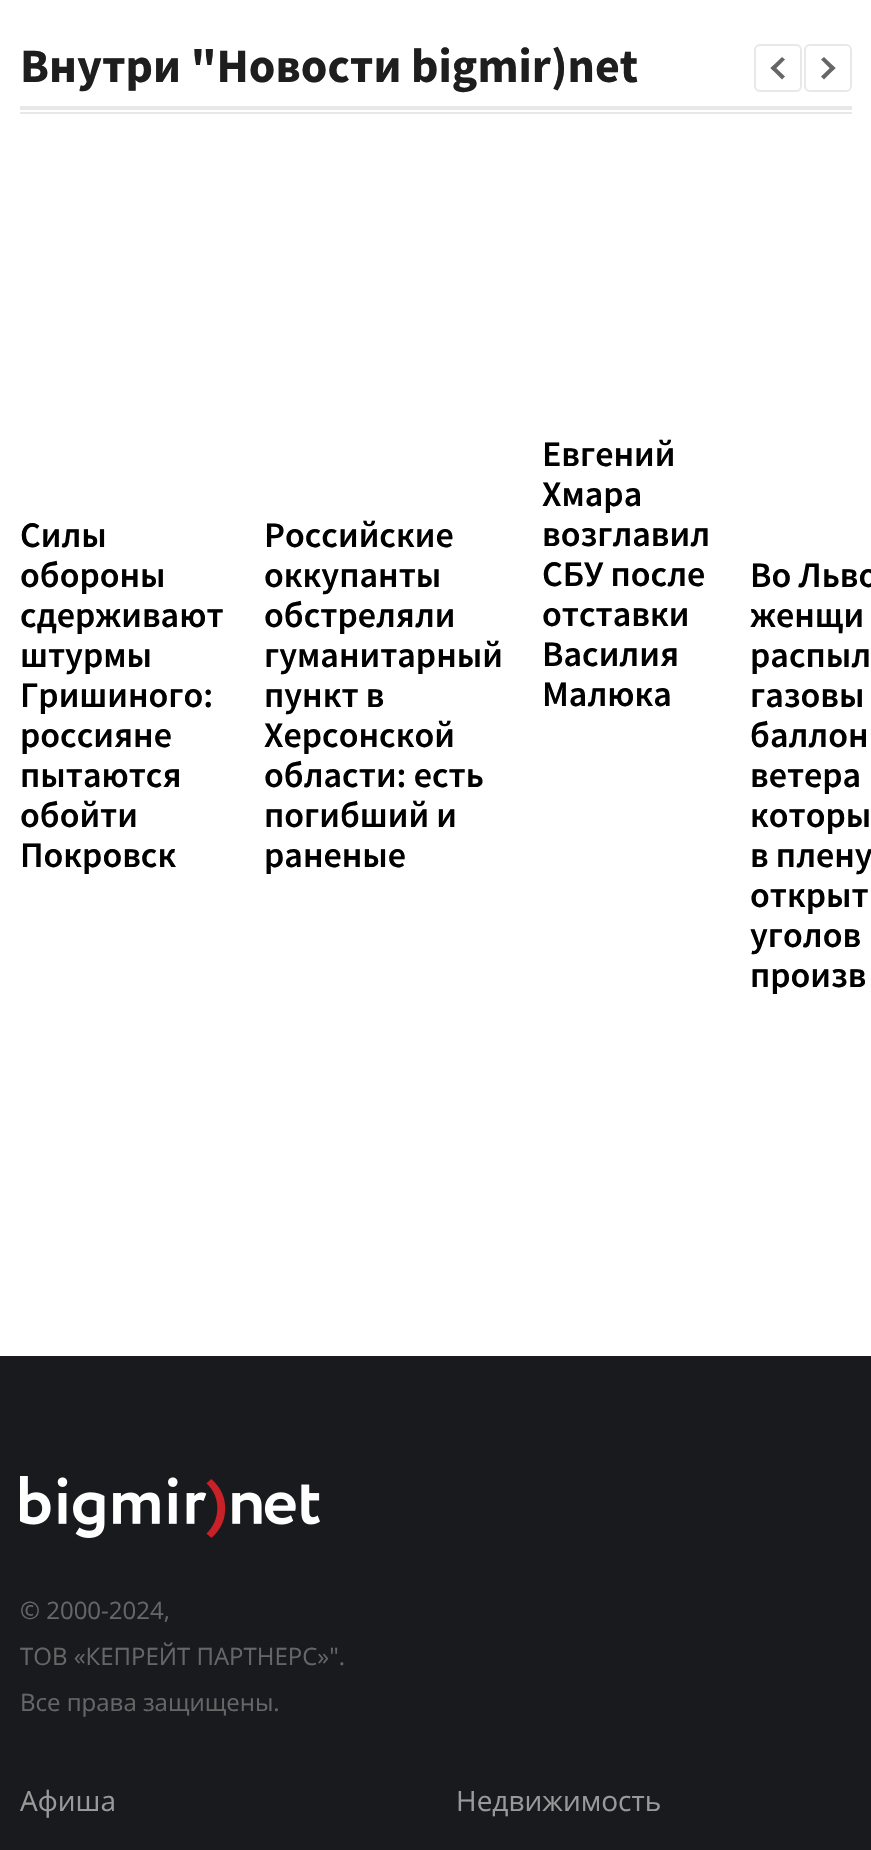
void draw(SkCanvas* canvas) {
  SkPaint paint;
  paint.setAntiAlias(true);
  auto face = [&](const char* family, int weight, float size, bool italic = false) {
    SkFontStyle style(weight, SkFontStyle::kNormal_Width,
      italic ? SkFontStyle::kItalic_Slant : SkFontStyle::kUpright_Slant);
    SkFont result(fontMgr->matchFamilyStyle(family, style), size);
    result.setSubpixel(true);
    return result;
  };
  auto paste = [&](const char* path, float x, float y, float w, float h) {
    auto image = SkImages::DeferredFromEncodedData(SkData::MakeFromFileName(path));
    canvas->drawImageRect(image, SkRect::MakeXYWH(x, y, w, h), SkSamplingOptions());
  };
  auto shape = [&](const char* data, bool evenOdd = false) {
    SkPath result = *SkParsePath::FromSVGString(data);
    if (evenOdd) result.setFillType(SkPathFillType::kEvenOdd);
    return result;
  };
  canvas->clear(0xffffffff);
  paint.setColor(0xffeae7e7);
  canvas->drawRect(SkRect::MakeXYWH(20, 112, 832, 2), paint);
  paint.setStroke(true);
  paint.setStrokeWidth(2);
  canvas->drawRoundRect(SkRect::MakeXYWH(755, 45, 46, 46), 5, 5, paint);
  paint.setStroke(false);
  paint.setColor(0xff666666);
  canvas->drawPath(shape("M785 76.5L782 79.5L770.5 68L773.5 65.5Z"), paint);
  canvas->drawPath(shape("M785 59.5L773.5 71L770.5 68L782 57Z"), paint);
  paint.setStroke(true);
  paint.setColor(0xffeae7e7);
  canvas->drawRoundRect(SkRect::MakeXYWH(805, 45, 46, 46), 5, 5, paint);
  paint.setStroke(false);
  paint.setColor(0xff666666);
  canvas->drawPath(shape("M821 59.5L824 57L835.5 68L832.5 71Z"), paint);
  canvas->drawPath(shape("M821 76.5L832.5 65.5L835.5 68L824 79.5Z"), paint);
  paint.setColor(0xffeae7e7);
  canvas->drawRect(SkRect::MakeXYWH(20, 106, 832, 4), paint);
  paint.setColor(0xff191a1e);
  canvas->drawRect(SkRect::MakeXYWH(0, 1356, 871, 494), paint);
  paste("img/1.png", 20, 1476, 300, 62);
  auto f0 = face("Source Sans Pro", 700, 48);
  paint.setColor(0xff1e1e1e);
  canvas->drawString("Внутри \"Новости bigmir)net", 20, 82, f0, paint);
  auto f1 = face("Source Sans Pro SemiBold", 600, 36);
  paint.setColor(0xff000000);
  {
    const struct { const char* s; float x, y; } items[] = {
      {"Силы", 20, 547},
      {"обороны", 20, 587},
      {"сдерживают", 20, 627},
      {"штурмы", 20, 667},
      {"Гришиного:", 20, 707},
      {"россияне", 20, 747},
      {"пытаются", 20, 787},
      {"обойти", 20, 827},
      {"Покровск", 20, 867},
      {"Российские", 264, 547},
      {"оккупанты", 264, 587},
      {"обстреляли", 264, 627},
      {"гуманитарный", 264, 667},
      {"пункт в", 264, 707},
      {"Херсонской", 264, 747},
      {"области: есть", 264, 787},
      {"погибший и", 264, 827},
      {"раненые", 264, 867},
      {"Евгений", 542, 466},
      {"Хмара", 542, 506},
      {"возглавил", 542, 546},
      {"СБУ после", 542, 586},
      {"отставки", 542, 626},
      {"Василия", 542, 666},
      {"Малюка", 542, 706},
      {"Во Льво", 750, 587},
      {"женщи", 750, 627},
      {"распыл", 750, 667},
      {"газовы", 750, 707},
      {"баллон", 750, 747},
      {"ветера", 750, 787},
      {"которы", 750, 827},
      {"в плену", 750, 867},
      {"открыт", 750, 907},
      {"уголов", 750, 947},
      {"произв", 750, 987},
    };
    for (auto [s, x, y] : items) {
      canvas->drawString(s, x, y, f1, paint);
    }
  }
  auto f2 = face("Open Sans", 400, 24);
  paint.setColor(0xff666666);
  {
    const struct { const char* s; float x, y; } items[] = {
      {"© 2000-2024,", 20, 1619},
      {"ТОВ «КЕПРЕЙТ ПАРТНЕРС»\".", 20, 1665},
      {"Все права защищены.", 20, 1711},
    };
    for (auto [s, x, y] : items) {
      canvas->drawString(s, x, y, f2, paint);
    }
  }
  auto f3 = face("Open Sans", 400, 28);
  paint.setColor(0xff999999);
  canvas->drawString("Афиша", 20, 1811, f3, paint);
  canvas->drawString("Недвижимость", 456, 1811, f3, paint);
}
